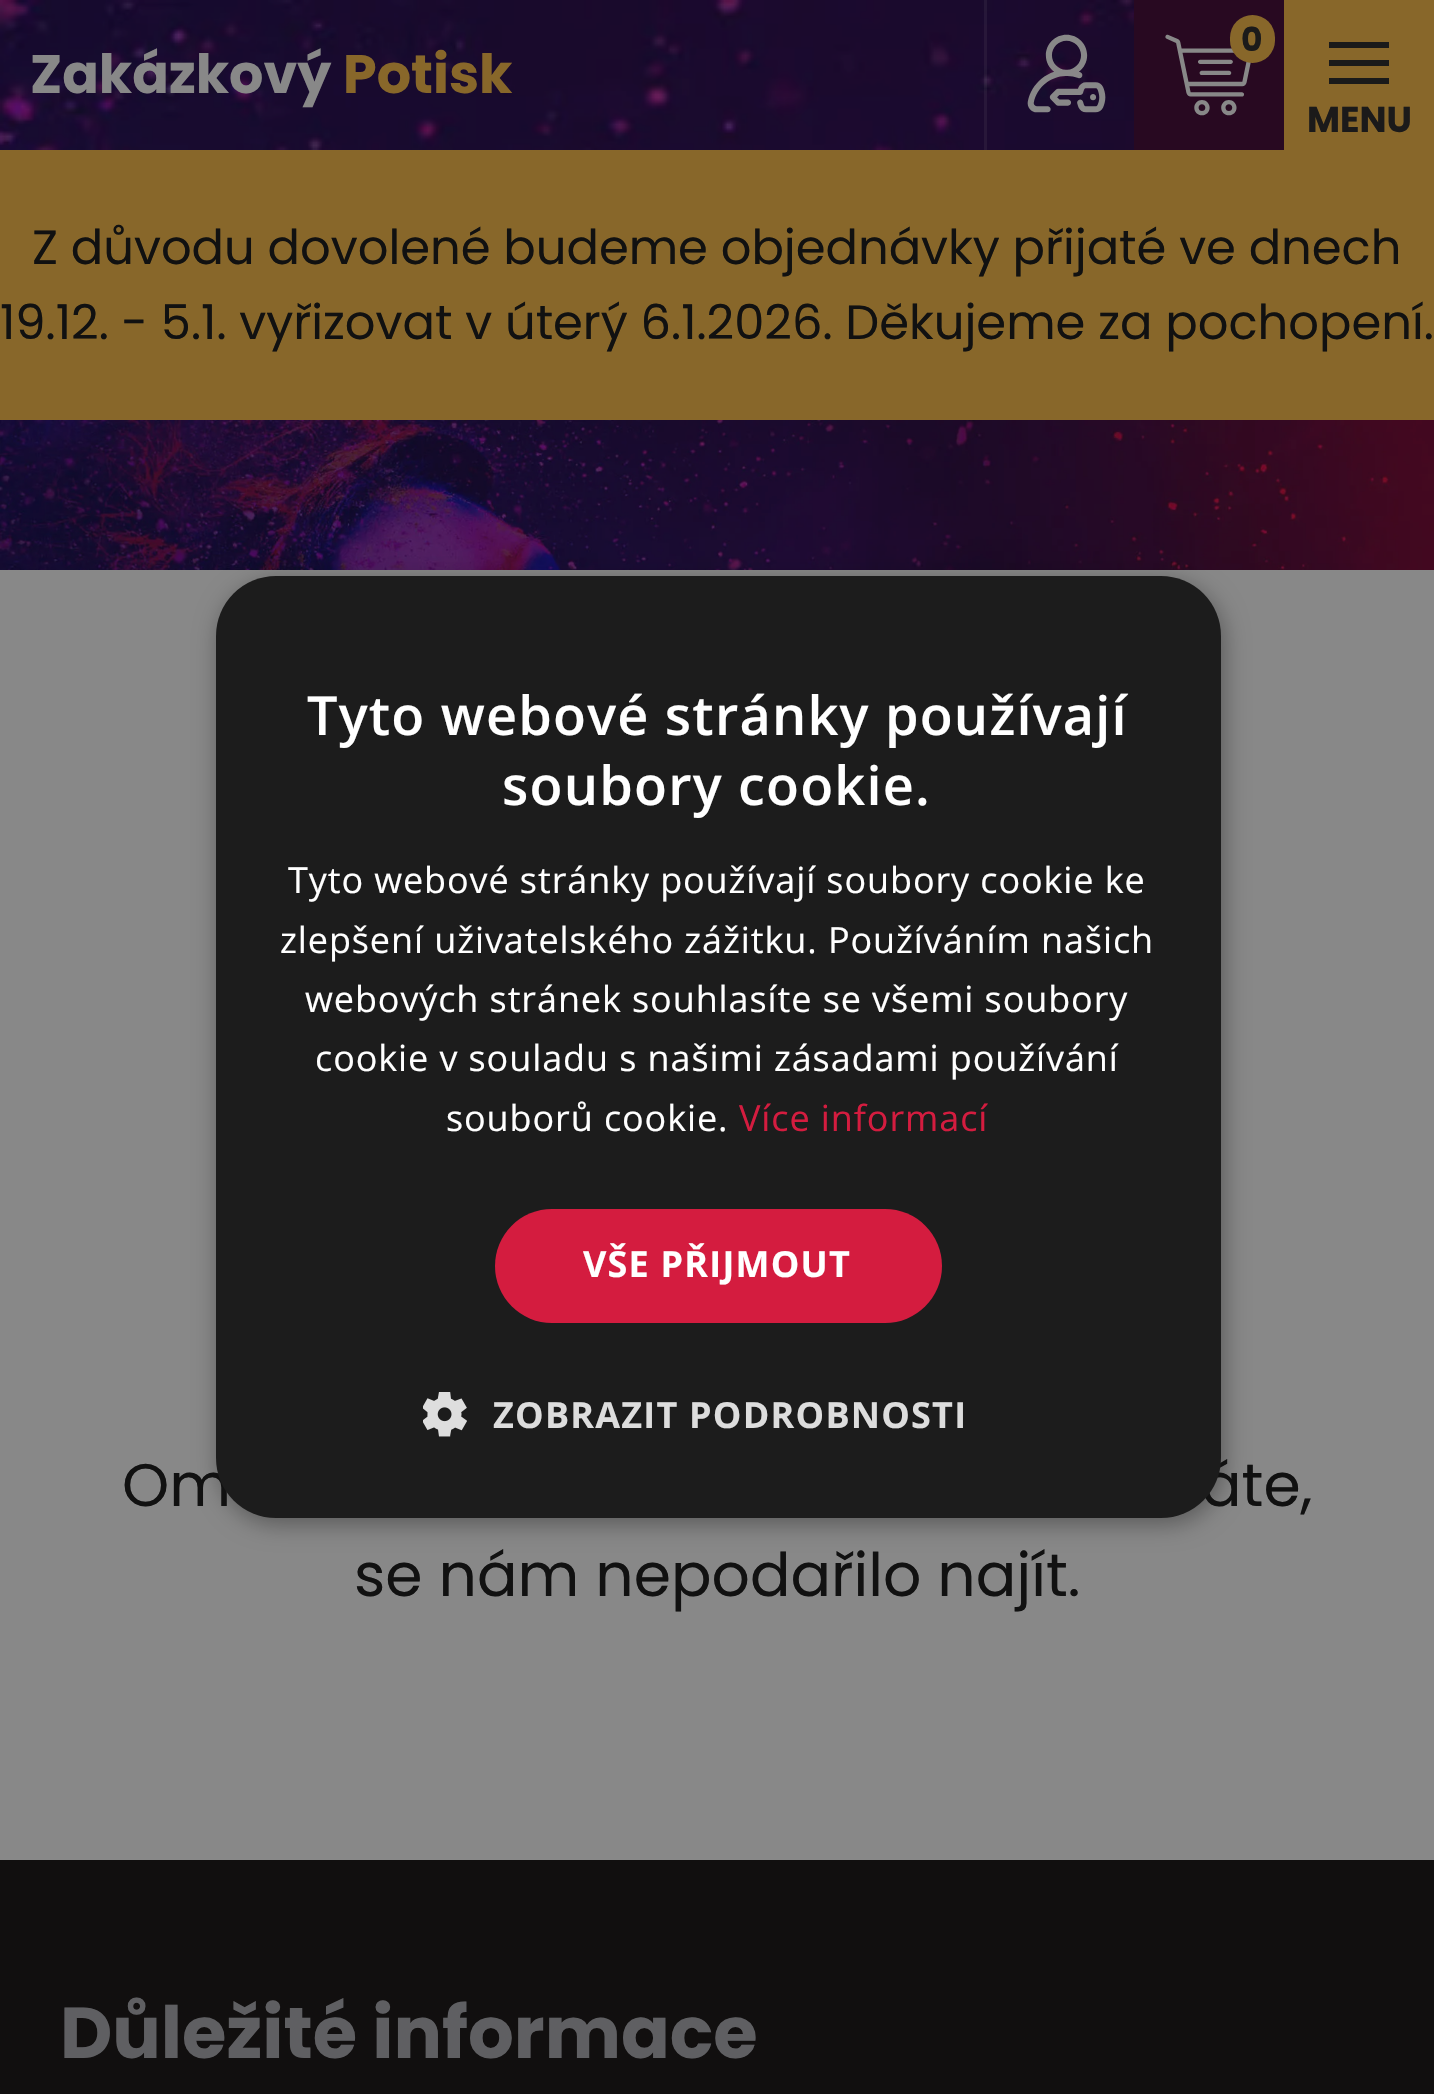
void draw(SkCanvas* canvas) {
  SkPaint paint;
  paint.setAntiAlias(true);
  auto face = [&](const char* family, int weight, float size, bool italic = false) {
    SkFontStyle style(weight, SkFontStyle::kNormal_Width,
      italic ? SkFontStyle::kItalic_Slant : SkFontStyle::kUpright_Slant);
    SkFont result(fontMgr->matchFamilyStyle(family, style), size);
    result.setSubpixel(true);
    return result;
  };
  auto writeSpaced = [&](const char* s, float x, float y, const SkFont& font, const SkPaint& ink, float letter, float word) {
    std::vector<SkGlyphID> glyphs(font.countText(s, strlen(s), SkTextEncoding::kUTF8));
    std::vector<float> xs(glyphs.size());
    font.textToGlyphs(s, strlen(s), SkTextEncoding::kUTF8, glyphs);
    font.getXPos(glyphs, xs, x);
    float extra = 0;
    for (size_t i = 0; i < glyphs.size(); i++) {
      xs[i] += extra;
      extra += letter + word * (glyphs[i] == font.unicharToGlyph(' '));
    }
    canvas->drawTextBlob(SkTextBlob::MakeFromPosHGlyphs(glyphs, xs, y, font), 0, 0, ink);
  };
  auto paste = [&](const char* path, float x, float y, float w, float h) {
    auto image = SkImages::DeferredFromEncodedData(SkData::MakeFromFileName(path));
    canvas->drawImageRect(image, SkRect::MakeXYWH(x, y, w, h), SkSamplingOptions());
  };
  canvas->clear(0xff888888);
  paste("img/1.png", 0, 420, 1434, 150);
  paste("img/2.png", 0, 0, 1134, 150);
  paint.setColor(0x1a888888);
  canvas->drawRect(SkRect::MakeXYWH(984, 0, 3, 150), paint);
  paste("img/3.png", 1027, 34, 79, 79);
  paint.setColor(0xff280921);
  canvas->drawRect(SkRect::MakeXYWH(1134, 0, 150, 150), paint);
  paste("img/4.png", 1165, 34, 86, 82);
  paint.setColor(0xff88672a);
  canvas->drawRoundRect(SkRect::MakeXYWH(1230, 15, 45, 48), 22.5f, 22.5f, paint);
  {
    const struct { float x, y, w, h; SkColor color; } items[] = {
      {1284, 0, 150, 150, 0xff88672a},
      {1329, 60, 60, 6, 0xff1a1a1a},
      {1329, 42, 60, 6, 0xff1a1a1a},
      {1329, 78, 60, 6, 0xff1a1a1a},
      {0, 150, 1434, 270, 0xff88672a},
    };
    for (auto [x, y, w, h, color] : items) {
      paint.setColor(color);
      canvas->drawRect(SkRect::MakeXYWH(x, y, w, h), paint);
    }
  }
  paint.setColor(0x59000000);
  paint.setMaskFilter(SkMaskFilter::MakeBlur(kNormal_SkBlurStyle, 12));
  canvas->drawRoundRect(SkRect::MakeXYWH(219, 582, 1005, 942), 60, 60, paint);
  paint.setMaskFilter(nullptr);
  paint.setColor(0xff110f0f);
  canvas->drawRect(SkRect::MakeXYWH(0, 1860, 1434, 234), paint);
  auto f0 = face("Poppins", 700, 54);
  paint.setColor(0xff888888);
  canvas->drawString("Zakázkový", 30, 93, f0, paint);
  paint.setColor(0xff88672a);
  canvas->drawString("Potisk", 343, 93, f0, paint);
  auto f1 = face("Poppins", 700, 33);
  paint.setColor(0xff1b1a1a);
  canvas->drawString("0", 1241, 51, f1, paint);
  auto f2 = face("Poppins", 700, 36);
  canvas->drawString("MENU", 1307, 132, f2, paint);
  auto f3 = face("Poppins", 400, 48);
  paint.setColor(0xff111111);
  canvas->drawString("Z důvodu dovolené budeme objednávky přijaté ve dnech", 32, 264, f3, paint);
  canvas->drawString("19.12. - 5.1. vyřizovat v úterý 6.1.2026. Děkujeme za pochopení.", 0, 339, f3, paint);
  auto f4 = face("Poppins", 400, 60);
  canvas->drawString("Om", 122, 1506, f4, paint);
  canvas->drawString("áte,", 1201, 1506, f4, paint);
  paint.setColor(0xff1c1c1c);
  canvas->drawRoundRect(SkRect::MakeXYWH(216, 576, 1005, 942), 60, 60, paint);
  auto f5 = face("Open Sans", 600, 54);
  paint.setColor(0xffffffff);
  writeSpaced("soubory cookie.", 502, 805, f5, paint, 1.2f, 0);
  writeSpaced("Tyto webové stránky používají", 307, 735, f5, paint, 1.2f, 0);
  paste("img/5.png", 423, 1392, 44, 45);
  auto f6 = face("Open Sans", 700, 36);
  paint.setColor(0xffdddddd);
  writeSpaced("ZOBRAZIT PODROBNOSTI", 493, 1428, f6, paint, 1.2f, 0);
  paint.setColor(0xffd41c3f);
  canvas->drawRoundRect(SkRect::MakeXYWH(495, 1209, 447, 114), 57, 57, paint);
  paint.setColor(0xffffffff);
  writeSpaced("VŠE PŘIJMOUT", 583, 1277, f6, paint, 1.2f, 0);
  auto f7 = face("Open Sans", 400, 36);
  paint.setColor(0xffd41c3f);
  writeSpaced("Více informací", 739, 1131, f7, paint, 0.9f, 0);
  paint.setColor(0xffffffff);
  {
    const struct { const char* s; float x, y; } items[] = {
      {"souborů cookie.", 446, 1131},
      {"cookie v souladu s našimi zásadami používání", 315, 1071},
      {"webových stránek souhlasíte se všemi soubory", 305, 1012},
      {"zlepšení uživatelského zážitku. Používáním našich", 280, 953},
      {"Tyto webové stránky používají soubory cookie ke", 288, 893},
    };
    for (auto [s, x, y] : items) {
      writeSpaced(s, x, y, f7, paint, 0.9f, 0);
    }
  }
  paint.setColor(0xff111111);
  canvas->drawString("se nám nepodařilo najít.", 354, 1596, f4, paint);
  auto f8 = face("Poppins", 700, 72);
  paint.setColor(0xff5f5f62);
  canvas->drawString("Důležité informace", 60, 2058, f8, paint);
}
